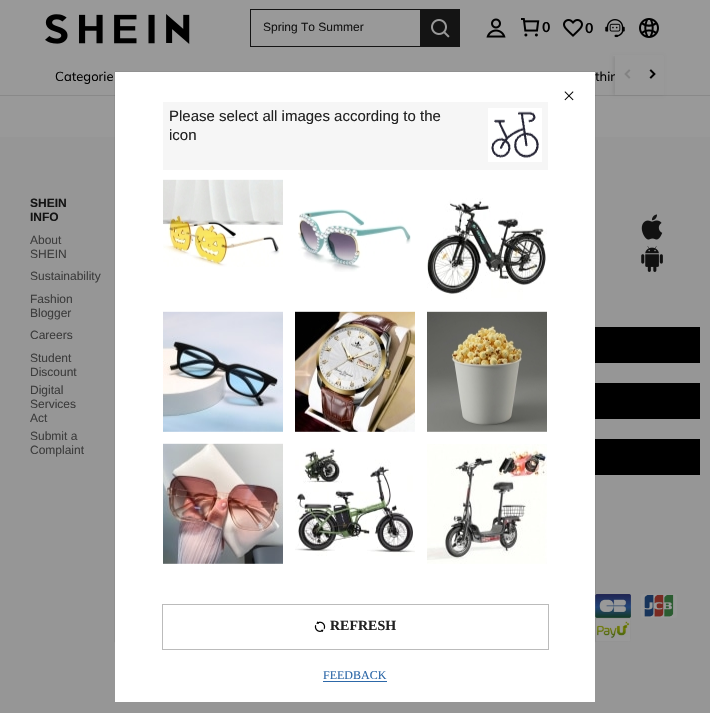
void draw(SkCanvas* canvas) {
  SkPaint paint;
  paint.setAntiAlias(true);
  auto face = [&](const char* family, int weight, float size, bool italic = false) {
    SkFontStyle style(weight, SkFontStyle::kNormal_Width,
      italic ? SkFontStyle::kItalic_Slant : SkFontStyle::kUpright_Slant);
    SkFont result(fontMgr->matchFamilyStyle(family, style), size);
    result.setSubpixel(true);
    return result;
  };
  auto paste = [&](const char* path, float x, float y, float w, float h) {
    auto image = SkImages::DeferredFromEncodedData(SkData::MakeFromFileName(path));
    canvas->drawImageRect(image, SkRect::MakeXYWH(x, y, w, h), SkSamplingOptions());
  };
  canvas->clear(0xff999999);
  paint.setColor(0xff898989);
  canvas->drawRect(SkRect::MakeXYWH(0, 95, 710, 1), paint);
  paint.setColor(0x14000000);
  paint.setMaskFilter(SkMaskFilter::MakeBlur(kNormal_SkBlurStyle, 1.5f));
  canvas->drawRect(SkRect::MakeXYWH(613, 56, 50, 39), paint);
  paint.setMaskFilter(nullptr);
  paint.setColor(0xff999999);
  canvas->drawRect(SkRect::MakeXYWH(613, 55, 50, 1), paint);
  paste("img/1.png", 45, 14, 145, 30);
  {
    const struct { float x, y, w, h; SkColor color; } items[] = {
      {250, 9, 170, 1, 0xff141414},
      {250, 46, 170, 1, 0xff141414},
      {250, 9, 1, 38, 0xff141414},
      {420, 9, 40, 38, 0xff141414},
    };
    for (auto [x, y, w, h, color] : items) {
      paint.setColor(color);
      canvas->drawRect(SkRect::MakeXYWH(x, y, w, h), paint);
    }
  }
  paste("img/2.png", 431, 19, 19, 19);
  paste("img/3.png", 486, 18, 20, 20);
  paste("img/4.png", 521, 18, 19, 19);
  paste("img/5.png", 563, 19, 20, 18);
  paste("img/6.png", 605, 19, 20, 19);
  paste("img/7.png", 639, 18, 20, 20);
  paint.setColor(0xff969696);
  canvas->drawRect(SkRect::MakeXYWH(0, 137, 710, 576), paint);
  paste("img/10.png", 641, 214, 22, 26);
  paste("img/11.png", 641, 246, 22, 26);
  {
    const struct { float x, y, w, h; SkColor color; } items[] = {
      {595, 327, 105, 36, 0xff000000},
      {595, 383, 105, 36, 0xff000000},
      {595, 439, 105, 36, 0xff000000},
    };
    for (auto [x, y, w, h, color] : items) {
      paint.setColor(color);
      canvas->drawRect(SkRect::MakeXYWH(x, y, w, h), paint);
    }
  }
  paste("img/12.png", 595, 594, 36, 24);
  paste("img/13.png", 641, 594, 36, 24);
  paste("img/14.png", 595, 618, 36, 24);
  paint.setColor(0x4d000000);
  paint.setMaskFilter(SkMaskFilter::MakeBlur(kNormal_SkBlurStyle, 0.5f));
  canvas->drawRect(SkRect::MakeXYWH(115, 72, 480, 570), paint);
  paint.setMaskFilter(nullptr);
  auto f0 = face("Liberation Sans", 400, 12);
  paint.setColor(0xff141414);
  canvas->drawString("Spring To Summer", 263, 31, f0, paint);
  auto f1 = face("Muli", 700, 14);
  paint.setColor(0xff000000);
  canvas->drawString("0", 542, 32, f1, paint);
  canvas->drawString("0", 585, 33, f1, paint);
  auto f2 = face("Muli", 400, 13);
  canvas->drawString("Categorie", 55, 81, f2, paint);
  canvas->drawString("thin", 595, 81, f2, paint);
  paint.setColor(0xff999999);
  canvas->drawRect(SkRect::MakeXYWH(615, 56, 49, 39), paint);
  paste("img/8.png", 624, 69, 7, 10);
  paste("img/9.png", 649, 69, 7, 10);
  auto f3 = face("Liberation Sans", 700, 12);
  paint.setColor(0xff141414);
  canvas->drawString("SHEIN", 30, 207, f3, paint);
  canvas->drawString("INFO", 30, 221, f3, paint);
  paint.setColor(0xff3d3d3d);
  {
    const struct { const char* s; float x, y; } items[] = {
      {"About", 30, 244},
      {"SHEIN", 30, 258},
      {"Sustainability", 30, 280},
      {"Fashion", 30, 303},
      {"Blogger", 30, 317},
      {"Careers", 30, 339},
      {"Student", 30, 362},
      {"Discount", 30, 376},
      {"Digital", 30, 394},
      {"Services", 30, 408},
      {"Act", 30, 422},
      {"Submit a", 30, 440},
      {"Complaint", 30, 454},
    };
    for (auto [s, x, y] : items) {
      canvas->drawString(s, x, y, f0, paint);
    }
  }
  paint.setColor(0xffffffff);
  canvas->drawRect(SkRect::MakeXYWH(115, 72, 480, 630), paint);
  paste("img/15.png", 564, 91, 10, 10);
  paint.setColor(0xfff6f6f6);
  canvas->drawRect(SkRect::MakeXYWH(163, 102, 385, 68), paint);
  auto f4 = face("Liberation Sans", 400, 15);
  paint.setColor(0xff222222);
  canvas->drawString("Please select all images according to the", 169, 121, f4, paint);
  canvas->drawString("icon", 169, 140, f4, paint);
  paint.setColor(0xffffffff);
  canvas->drawRect(SkRect::MakeXYWH(488, 108, 54, 54), paint);
  paste("img/16.png", 491, 111, 48, 47);
  paste("img/17.png", 163, 179, 120, 88);
  paste("img/18.png", 298, 209, 113, 63);
  paste("img/19.png", 427, 198, 120, 102);
  paste("img/20.png", 163, 311, 120, 121);
  paste("img/21.png", 295, 311, 120, 121);
  paste("img/22.png", 427, 311, 120, 121);
  paste("img/23.png", 163, 443, 120, 121);
  paste("img/24.png", 295, 448, 120, 108);
  paste("img/25.png", 427, 444, 120, 120);
  paint.setStroke(true);
  paint.setStrokeWidth(1);
  paint.setColor(0xffbbbbbb);
  canvas->drawRect(SkRect::MakeXYWH(162.5f, 604.5f, 386, 45), paint);
  paste("img/26.png", 314, 621, 12, 11);
  auto f5 = face("Liberation Serif", 700, 14);
  paint.setStroke(false);
  paint.setColor(0xff222222);
  canvas->drawString("REFRESH", 330, 630, f5, paint);
  auto f6 = face("Liberation Serif", 400, 12);
  paint.setColor(0xff2d68a8);
  canvas->drawString("FEEDBACK", 323, 679, f6, paint);
  canvas->drawRect(SkRect::MakeXYWH(323, 681, 64, 1), paint);
}
